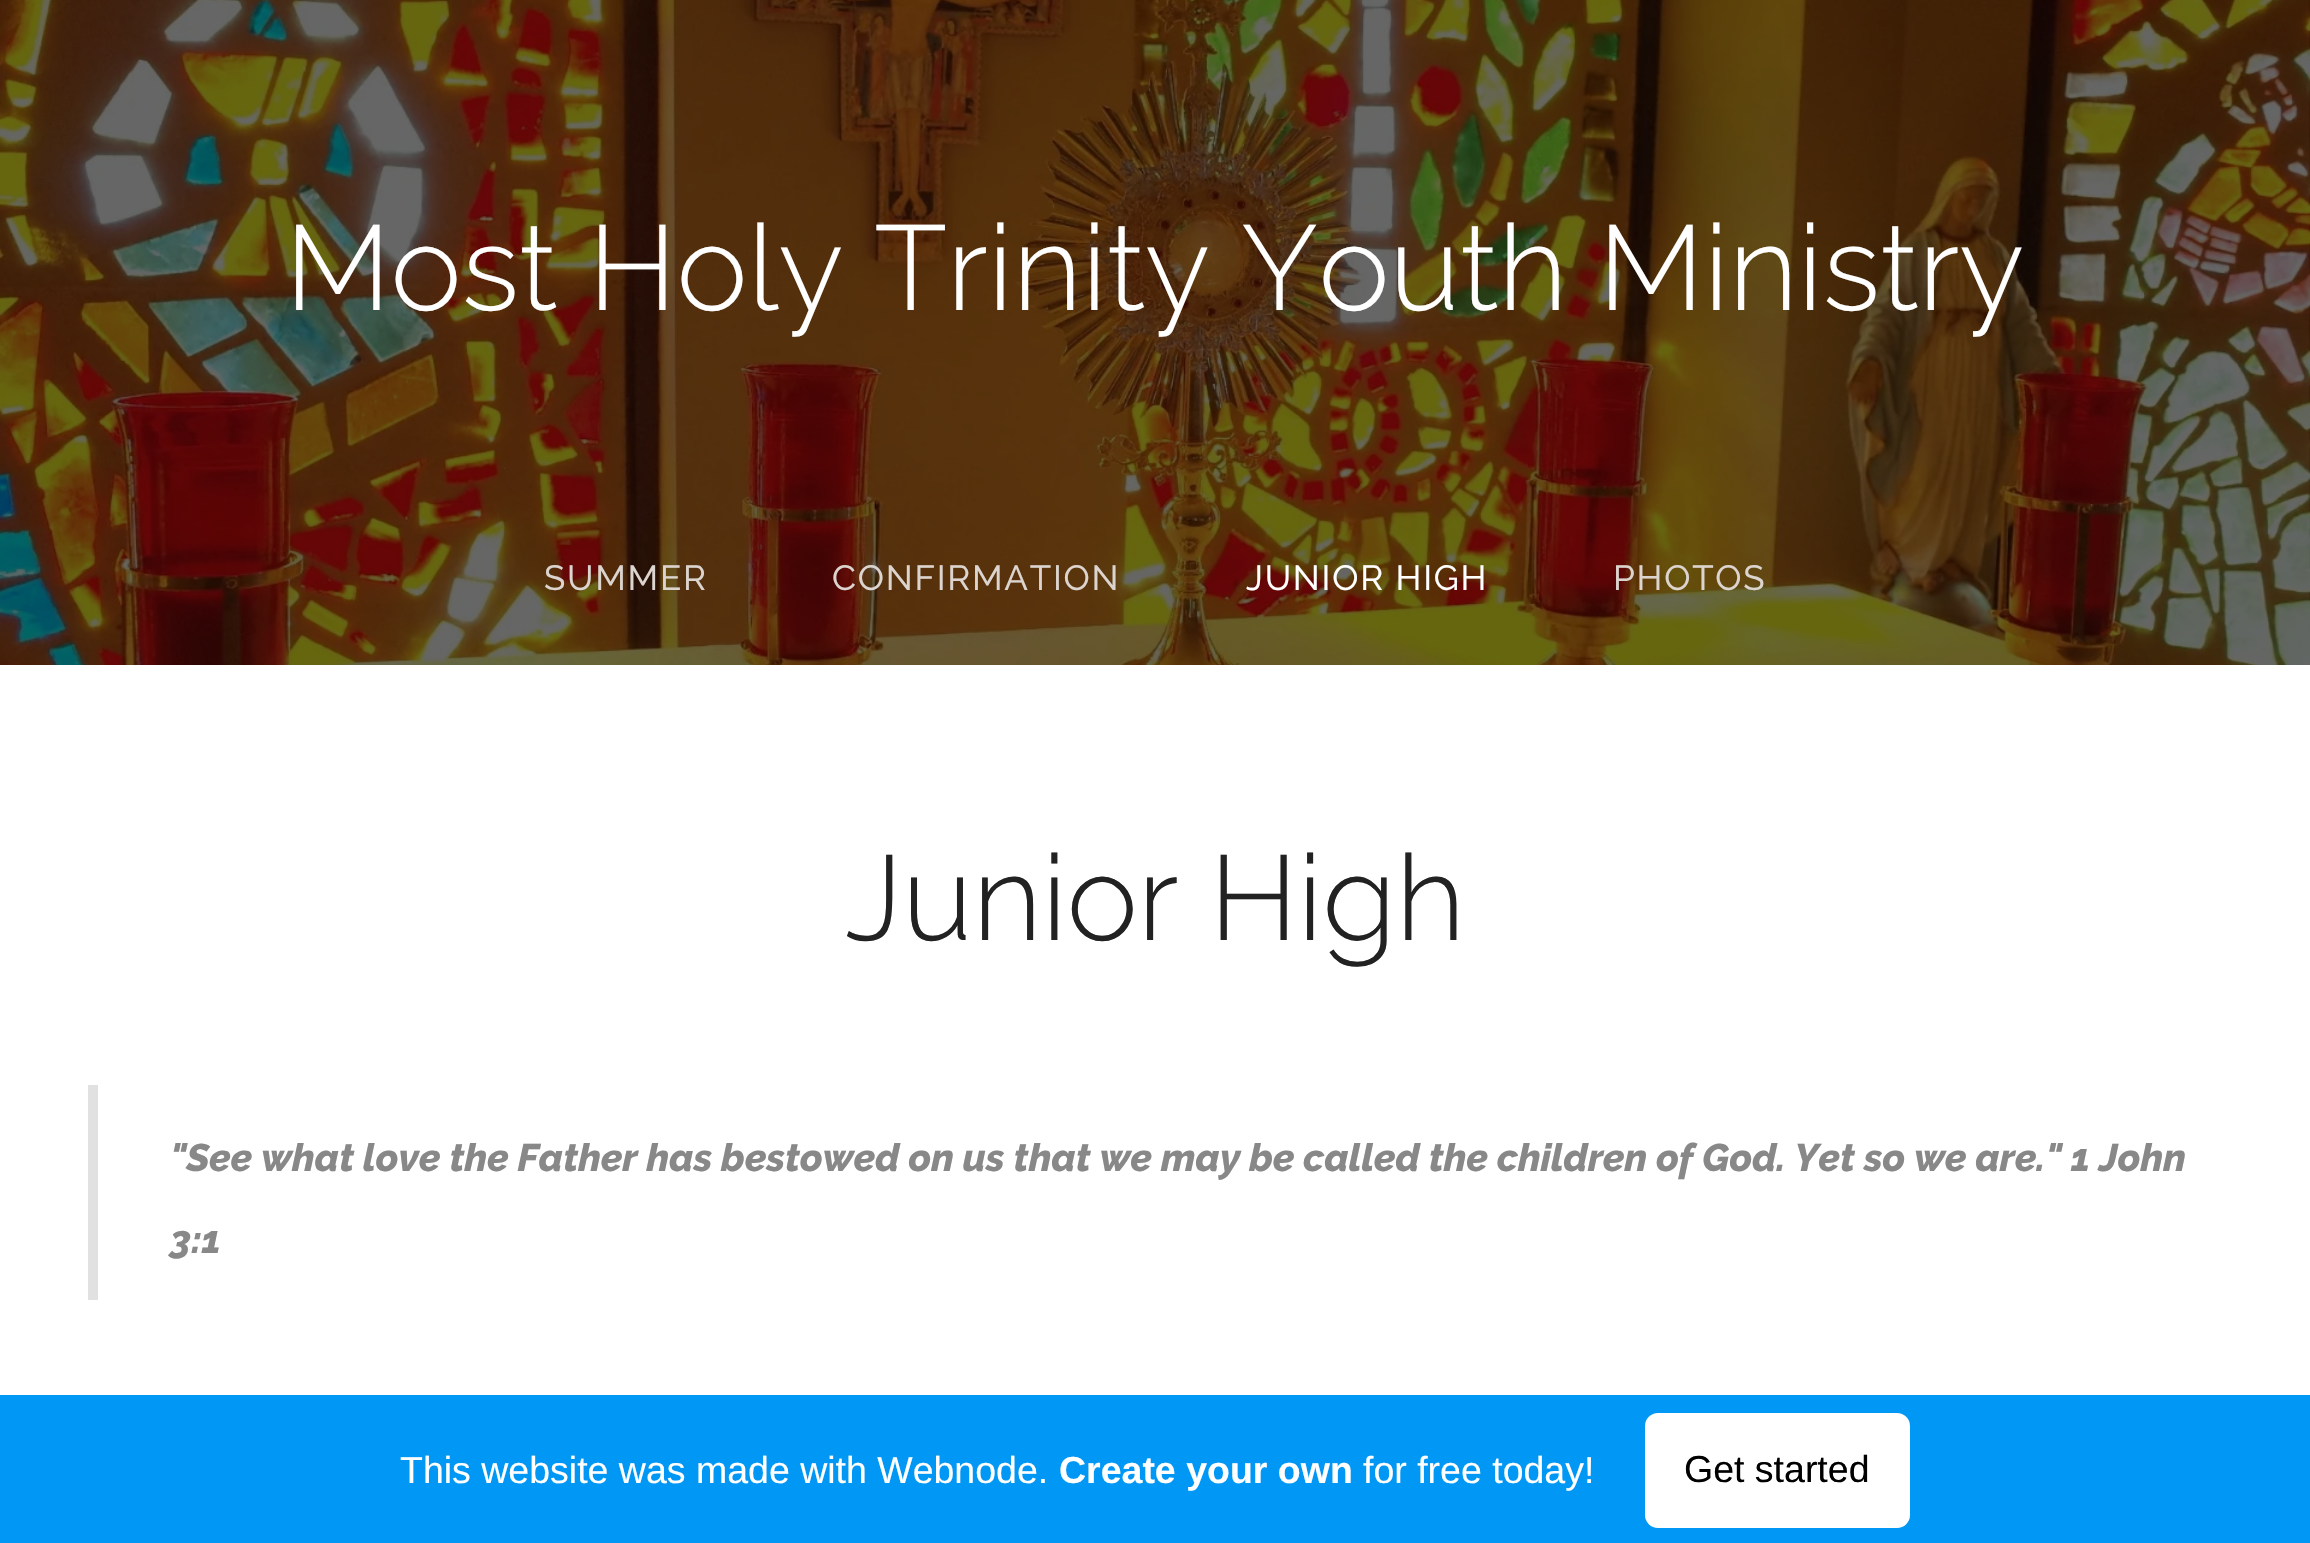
void draw(SkCanvas* canvas) {
  SkPaint paint;
  paint.setAntiAlias(true);
  auto face = [&](const char* family, int weight, float size, bool italic = false) {
    SkFontStyle style(weight, SkFontStyle::kNormal_Width,
      italic ? SkFontStyle::kItalic_Slant : SkFontStyle::kUpright_Slant);
    SkFont result(fontMgr->matchFamilyStyle(family, style), size);
    result.setSubpixel(true);
    return result;
  };
  auto writeSpaced = [&](const char* s, float x, float y, const SkFont& font, const SkPaint& ink, float letter, float word) {
    std::vector<SkGlyphID> glyphs(font.countText(s, strlen(s), SkTextEncoding::kUTF8));
    std::vector<float> xs(glyphs.size());
    font.textToGlyphs(s, strlen(s), SkTextEncoding::kUTF8, glyphs);
    font.getXPos(glyphs, xs, x);
    float extra = 0;
    for (size_t i = 0; i < glyphs.size(); i++) {
      xs[i] += extra;
      extra += letter + word * (glyphs[i] == font.unicharToGlyph(' '));
    }
    canvas->drawTextBlob(SkTextBlob::MakeFromPosHGlyphs(glyphs, xs, y, font), 0, 0, ink);
  };
  auto paste = [&](const char* path, float x, float y, float w, float h) {
    auto image = SkImages::DeferredFromEncodedData(SkData::MakeFromFileName(path));
    canvas->drawImageRect(image, SkRect::MakeXYWH(x, y, w, h), SkSamplingOptions());
  };
  canvas->clear(0xffffffff);
  paste("img/1.png", 0, 0, 2310, 665);
  paint.setColor(0xffe1e1e1);
  canvas->drawRect(SkRect::MakeXYWH(88, 1085, 10, 215), paint);
  paint.setColor(0xff0097f5);
  canvas->drawRect(SkRect::MakeXYWH(0, 1395, 2310, 148), paint);
  paint.setColor(0xffffffff);
  canvas->drawRoundRect(SkRect::MakeXYWH(1645, 1413, 265, 115), 13, 13, paint);
  auto f0 = face("Raleway", 300, 120);
  canvas->drawString("Most Holy Trinity Youth Ministry", 285, 310, f0, paint);
  auto f1 = face("Raleway", 400, 35);
  paint.setColor(0xffdcd4ce);
  writeSpaced("SUMMER", 544, 590, f1, paint, 1.75f, 0);
  writeSpaced("CONFIRMATION", 832, 590, f1, paint, 1.75f, 0);
  paint.setColor(0xffffffff);
  writeSpaced("JUNIOR HIGH", 1246, 590, f1, paint, 1.75f, 0);
  paint.setColor(0xffdcd4ce);
  writeSpaced("PHOTOS", 1613, 590, f1, paint, 1.75f, 0);
  paint.setColor(0xff222222);
  canvas->drawString("Junior High", 845, 940, f0, paint);
  auto f2 = face("Raleway", 800, 38.5f, true);
  paint.setColor(0xff888888);
  canvas->drawString("\"See what love the Father has bestowed on us that we may be called the children of God. Yet so we are.\" 1 John", 170, 1171, f2, paint);
  canvas->drawString("3:1", 170, 1253, f2, paint);
  auto f3 = face("Liberation Sans", 400, 37.5f);
  paint.setColor(0xffffffff);
  canvas->drawString("This website was made with Webnode.", 400, 1483, f3, paint);
  auto f4 = face("Liberation Sans", 700, 37.5f);
  canvas->drawString("Create your own", 1059, 1483, f4, paint);
  canvas->drawString("for free today!", 1363, 1483, f3, paint);
  paint.setColor(0xff000000);
  canvas->drawString("Get started", 1684, 1482, f3, paint);
}
